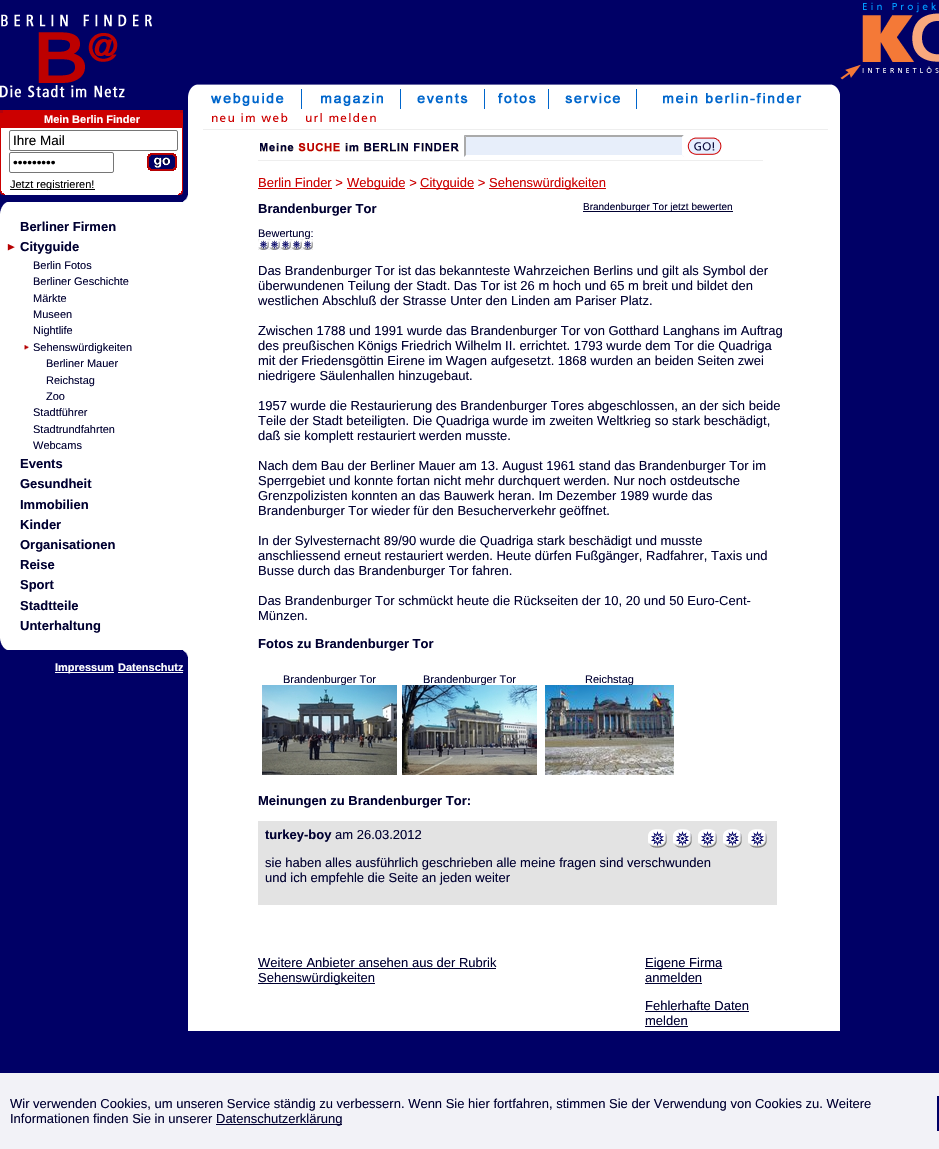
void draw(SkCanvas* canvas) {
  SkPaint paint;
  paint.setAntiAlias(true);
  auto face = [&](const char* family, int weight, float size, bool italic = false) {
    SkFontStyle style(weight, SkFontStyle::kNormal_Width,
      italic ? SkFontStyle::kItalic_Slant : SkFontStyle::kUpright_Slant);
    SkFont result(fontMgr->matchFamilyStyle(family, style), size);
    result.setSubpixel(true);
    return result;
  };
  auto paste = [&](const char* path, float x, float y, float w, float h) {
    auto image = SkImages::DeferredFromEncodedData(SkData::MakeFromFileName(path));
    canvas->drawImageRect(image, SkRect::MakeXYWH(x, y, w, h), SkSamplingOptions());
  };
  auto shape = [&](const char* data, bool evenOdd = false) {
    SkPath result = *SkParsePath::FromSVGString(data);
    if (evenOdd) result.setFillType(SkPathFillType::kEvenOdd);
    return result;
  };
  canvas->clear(0xff000066);
  paste("img/1.png", 840, 2, 99, 78);
  paint.setColor(0xffffffff);
  canvas->drawRect(SkRect::MakeXYWH(188, 97, 652, 934), paint);
  paste("img/2.png", 1, 14, 151, 69);
  paste("img/3.png", 0, 85, 125, 13);
  {
    const struct { float x, y, w, h; SkColor color; } items[] = {
      {1, 128, 181, 67, 0xffffffff},
      {0, 110, 183, 18, 0xffcc0000},
      {0, 110, 3, 3, 0xffb3000c},
      {180, 110, 3, 3, 0xffb3000c},
      {0, 128, 1, 62, 0xffcc0000},
    };
    for (auto [x, y, w, h, color] : items) {
      paint.setColor(color);
      canvas->drawRect(SkRect::MakeXYWH(x, y, w, h), paint);
    }
  }
  paint.setStroke(true);
  paint.setStrokeWidth(1);
  paint.setColor(0xff767676);
  canvas->drawRoundRect(SkRect::MakeXYWH(9.5f, 130.5f, 168, 20), 1.5f, 1.5f, paint);
  canvas->drawRoundRect(SkRect::MakeXYWH(9.5f, 152.5f, 104, 20), 1.5f, 1.5f, paint);
  paste("img/4.png", 147, 153, 30, 18);
  paint.setStroke(false);
  {
    const struct { float x, y, w, h; SkColor color; } items[] = {
      {10, 189, 85, 1, 0xff000000},
      {182, 128, 1, 62, 0xffcc0000},
      {0, 194, 5, 1, 0xff000066},
    };
    for (auto [x, y, w, h, color] : items) {
      paint.setColor(color);
      canvas->drawRect(SkRect::MakeXYWH(x, y, w, h), paint);
    }
  }
  paste("img/5.png", 0, 190, 5, 5);
  canvas->drawRect(SkRect::MakeXYWH(178, 194, 5, 1), paint);
  paste("img/6.png", 178, 190, 5, 5);
  paste("img/7.png", 183, 195, 5, 7);
  paint.setColor(0xffffffff);
  canvas->drawRect(SkRect::MakeXYWH(8, 202, 180, 12), paint);
  paste("img/8.png", 0, 202, 8, 12);
  canvas->drawRect(SkRect::MakeXYWH(0, 214, 188, 424), paint);
  paste("img/9.png", 7, 244, 8, 7);
  paste("img/10.png", 24, 345, 5, 5);
  canvas->drawRect(SkRect::MakeXYWH(8, 638, 180, 12), paint);
  paste("img/11.png", 0, 638, 8, 12);
  paste("img/12.png", 183, 650, 5, 7);
  canvas->drawRect(SkRect::MakeXYWH(55, 672, 59, 1), paint);
  canvas->drawRect(SkRect::MakeXYWH(118, 672, 65, 1), paint);
  paste("img/13.png", 188, 84, 652, 13);
  paste("img/14.png", 211, 93, 73, 13);
  paint.setColor(0xff0066cc);
  canvas->drawRect(SkRect::MakeXYWH(301, 89, 1, 20), paint);
  paste("img/15.png", 321, 93, 62, 13);
  canvas->drawRect(SkRect::MakeXYWH(400, 89, 1, 20), paint);
  paste("img/16.png", 417, 93, 51, 11);
  canvas->drawRect(SkRect::MakeXYWH(484, 89, 1, 20), paint);
  paste("img/17.png", 498, 93, 38, 11);
  canvas->drawRect(SkRect::MakeXYWH(548, 89, 1, 20), paint);
  paste("img/18.png", 565, 93, 55, 11);
  canvas->drawRect(SkRect::MakeXYWH(636, 89, 1, 20), paint);
  paste("img/19.png", 663, 93, 139, 11);
  paste("img/20.png", 212, 113, 76, 9);
  paste("img/21.png", 306, 113, 70, 9);
  paint.setColor(0xffeeeeee);
  canvas->drawRect(SkRect::MakeXYWH(203, 129, 625, 1), paint);
  paste("img/22.png", 832, 84, 8, 11);
  canvas->drawRect(SkRect::MakeXYWH(258, 160, 505, 1), paint);
  paste("img/23.png", 260, 143, 199, 9);
  paint.setColor(0xffe7eefa);
  canvas->drawRect(SkRect::MakeXYWH(464, 135, 220, 22), paint);
  paint.setColor(0xffaaaaaa);
  canvas->drawPath(shape("M464 135H684L682 137H466Z"), paint);
  paint.setColor(0xffffffff);
  canvas->drawPath(shape("M684 135V157L682 155V137Z"), paint);
  canvas->drawPath(shape("M684 157H464L466 155H682Z"), paint);
  paint.setColor(0xffaaaaaa);
  canvas->drawPath(shape("M464 157V135L466 137V155Z"), paint);
  paste("img/24.png", 687, 137, 35, 18);
  {
    const struct { float x, y, w, h; SkColor color; } items[] = {
      {258, 188, 74, 1, 0xffcc0000},
      {347, 188, 58, 1, 0xffcc0000},
      {420, 188, 54, 1, 0xffcc0000},
      {489, 188, 117, 1, 0xffcc0000},
      {583, 211, 150, 1, 0xff000031},
      {258, 821, 519, 84, 0xffe3e3e3},
    };
    for (auto [x, y, w, h, color] : items) {
      paint.setColor(color);
      canvas->drawRect(SkRect::MakeXYWH(x, y, w, h), paint);
    }
  }
  paste("img/29.png", 648, 829, 19, 19);
  paste("img/29.png", 673, 829, 19, 19);
  paste("img/29.png", 698, 829, 19, 19);
  paste("img/29.png", 723, 829, 19, 19);
  paste("img/29.png", 748, 829, 19, 19);
  {
    const struct { float x, y, w, h; SkColor color; } items[] = {
      {258, 968, 238, 1, 0xff000031},
      {258, 983, 117, 1, 0xff000031},
      {645, 968, 77, 1, 0xff000031},
      {645, 983, 57, 1, 0xff000031},
      {645, 1011, 104, 1, 0xff000031},
      {645, 1026, 43, 1, 0xff000031},
      {0, 1073, 939, 76, 0xfff2f2f7},
      {937, 1096, 2, 35, 0xff000066},
      {216, 1124, 126, 1, 0xff000031},
    };
    for (auto [x, y, w, h, color] : items) {
      paint.setColor(color);
      canvas->drawRect(SkRect::MakeXYWH(x, y, w, h), paint);
    }
  }
  auto f0 = face("Liberation Sans", 700, 11);
  paint.setColor(0xffffffff);
  canvas->drawString("Mein Berlin Finder", 44, 123, f0, paint);
  auto f1 = face("Liberation Sans", 400, 13.5f);
  paint.setColor(0xff000000);
  canvas->drawString("Ihre Mail", 13, 145, f1, paint);
  canvas->drawString("•••••••••", 13, 167, f1, paint);
  auto f2 = face("Liberation Sans", 400, 11);
  canvas->drawString("Jetzt registrieren!", 10, 188, f2, paint);
  paint.setColor(0xffffffff);
  canvas->drawRect(SkRect::MakeXYWH(48, 190, 3, 1), paint);
  auto f3 = face("Liberation Sans", 700, 13);
  paint.setColor(0xff000031);
  canvas->drawString("Berliner Firmen", 20, 231, f3, paint);
  canvas->drawString("Cityguide", 20, 251, f3, paint);
  {
    const struct { const char* s; float x, y; } items[] = {
      {"Berlin Fotos", 33, 269},
      {"Berliner Geschichte", 33, 285},
      {"Märkte", 33, 302},
      {"Museen", 33, 318},
      {"Nightlife", 33, 334},
      {"Sehenswürdigkeiten", 33, 351},
      {"Berliner Mauer", 46, 367},
      {"Reichstag", 46, 384},
      {"Zoo", 46, 400},
      {"Stadtführer", 33, 416},
      {"Stadtrundfahrten", 33, 433},
      {"Webcams", 33, 449},
    };
    for (auto [s, x, y] : items) {
      canvas->drawString(s, x, y, f2, paint);
    }
  }
  {
    const struct { const char* s; float x, y; } items[] = {
      {"Events", 20, 468},
      {"Gesundheit", 20, 488},
      {"Immobilien", 20, 509},
      {"Kinder", 20, 529},
      {"Organisationen", 20, 549},
      {"Reise", 20, 569},
      {"Sport", 20, 589},
      {"Stadtteile", 20, 610},
      {"Unterhaltung", 20, 630},
    };
    for (auto [s, x, y] : items) {
      canvas->drawString(s, x, y, f3, paint);
    }
  }
  paint.setColor(0xffffffff);
  canvas->drawString("Impressum", 55, 671, f0, paint);
  canvas->drawString("Datenschutz", 118, 671, f0, paint);
  auto f4 = face("Liberation Sans", 400, 13);
  paint.setColor(0xffcc0000);
  {
    const struct { const char* s; float x, y; } items[] = {
      {"Berlin Finder >", 258, 187},
      {"Webguide >", 347, 187},
      {"Cityguide >", 420, 187},
      {"Sehenswürdigkeiten", 489, 187},
    };
    for (auto [s, x, y] : items) {
      canvas->drawString(s, x, y, f4, paint);
    }
  }
  paint.setColor(0xff000031);
  canvas->drawString("Brandenburger Tor", 258, 213, f3, paint);
  auto f5 = face("Liberation Sans", 400, 10);
  canvas->drawString("Brandenburger Tor jetzt bewerten", 583, 210, f5, paint);
  canvas->drawString("Bewertung:", 258, 237, f2, paint);
  paste("img/25.png", 258, 239, 11, 11);
  paste("img/25.png", 269, 239, 11, 11);
  paste("img/25.png", 280, 239, 11, 11);
  paste("img/25.png", 291, 239, 11, 11);
  paste("img/25.png", 302, 239, 11, 11);
  {
    const struct { const char* s; float x, y; } items[] = {
      {"Das Brandenburger Tor ist das bekannteste Wahrzeichen Berlins und gilt als Symbol der", 258, 275},
      {"überwundenen Teilung der Stadt. Das Tor ist 26 m hoch und 65 m breit und bildet den", 258, 290},
      {"westlichen Abschluß der Strasse Unter den Linden am Pariser Platz.", 258, 305},
      {"Zwischen 1788 und 1991 wurde das Brandenburger Tor von Gotthard Langhans im Auftrag", 258, 335},
      {"des preußischen Königs Friedrich Wilhelm II. errichtet. 1793 wurde dem Tor die Quadriga", 258, 350},
      {"mit der Friedensgöttin Eirene im Wagen aufgesetzt. 1868 wurden an beiden Seiten zwei", 258, 365},
      {"niedrigere Säulenhallen hinzugebaut.", 258, 380},
      {"1957 wurde die Restaurierung des Brandenburger Tores abgeschlossen, an der sich beide", 258, 410},
      {"Teile der Stadt beteiligten. Die Quadriga wurde im zweiten Weltkrieg so stark beschädigt,", 258, 425},
      {"daß sie komplett restauriert werden musste.", 258, 440},
      {"Nach dem Bau der Berliner Mauer am 13. August 1961 stand das Brandenburger Tor im", 258, 470},
      {"Sperrgebiet und konnte fortan nicht mehr durchquert werden. Nur noch ostdeutsche", 258, 485},
      {"Grenzpolizisten konnten an das Bauwerk heran. Im Dezember 1989 wurde das", 258, 500},
      {"Brandenburger Tor wieder für den Besucherverkehr geöffnet.", 258, 515},
      {"In der Sylvesternacht 89/90 wurde die Quadriga stark beschädigt und musste", 258, 545},
      {"anschliessend erneut restauriert werden. Heute dürfen Fußgänger, Radfahrer, Taxis und", 258, 560},
      {"Busse durch das Brandenburger Tor fahren.", 258, 575},
      {"Das Brandenburger Tor schmückt heute die Rückseiten der 10, 20 und 50 Euro-Cent-", 258, 605},
      {"Münzen.", 258, 620},
    };
    for (auto [s, x, y] : items) {
      canvas->drawString(s, x, y, f4, paint);
    }
  }
  canvas->drawString("Fotos zu Brandenburger Tor", 258, 648, f3, paint);
  canvas->drawString("Brandenburger Tor", 283, 683, f2, paint);
  paste("img/26.png", 262, 685, 135, 90);
  canvas->drawString("Brandenburger Tor", 423, 683, f2, paint);
  paste("img/27.png", 402, 685, 135, 90);
  canvas->drawString("Reichstag", 585, 683, f2, paint);
  paste("img/28.png", 545, 685, 129, 90);
  canvas->drawString("Meinungen zu Brandenburger Tor:", 258, 805, f3, paint);
  canvas->drawString("turkey-boy", 265, 839, f3, paint);
  {
    const struct { const char* s; float x, y; } items[] = {
      {"am 26.03.2012", 335, 839},
      {"sie haben alles ausführlich geschrieben alle meine fragen sind verschwunden", 265, 867},
      {"und ich empfehle die Seite an jeden weiter", 265, 882},
      {"Weitere Anbieter ansehen aus der Rubrik", 258, 967},
      {"Sehenswürdigkeiten", 258, 982},
      {"Eigene Firma", 645, 967},
      {"anmelden", 645, 982},
      {"Fehlerhafte Daten", 645, 1010},
      {"melden", 645, 1025},
      {"Wir verwenden Cookies, um unseren Service ständig zu verbessern. Wenn Sie hier fortfahren, stimmen Sie der Verwendung von Cookies zu. Weitere", 10, 1108},
      {"Informationen finden Sie in unserer", 10, 1123},
      {"Datenschutzerklärung", 216, 1123},
    };
    for (auto [s, x, y] : items) {
      canvas->drawString(s, x, y, f4, paint);
    }
  }
}
